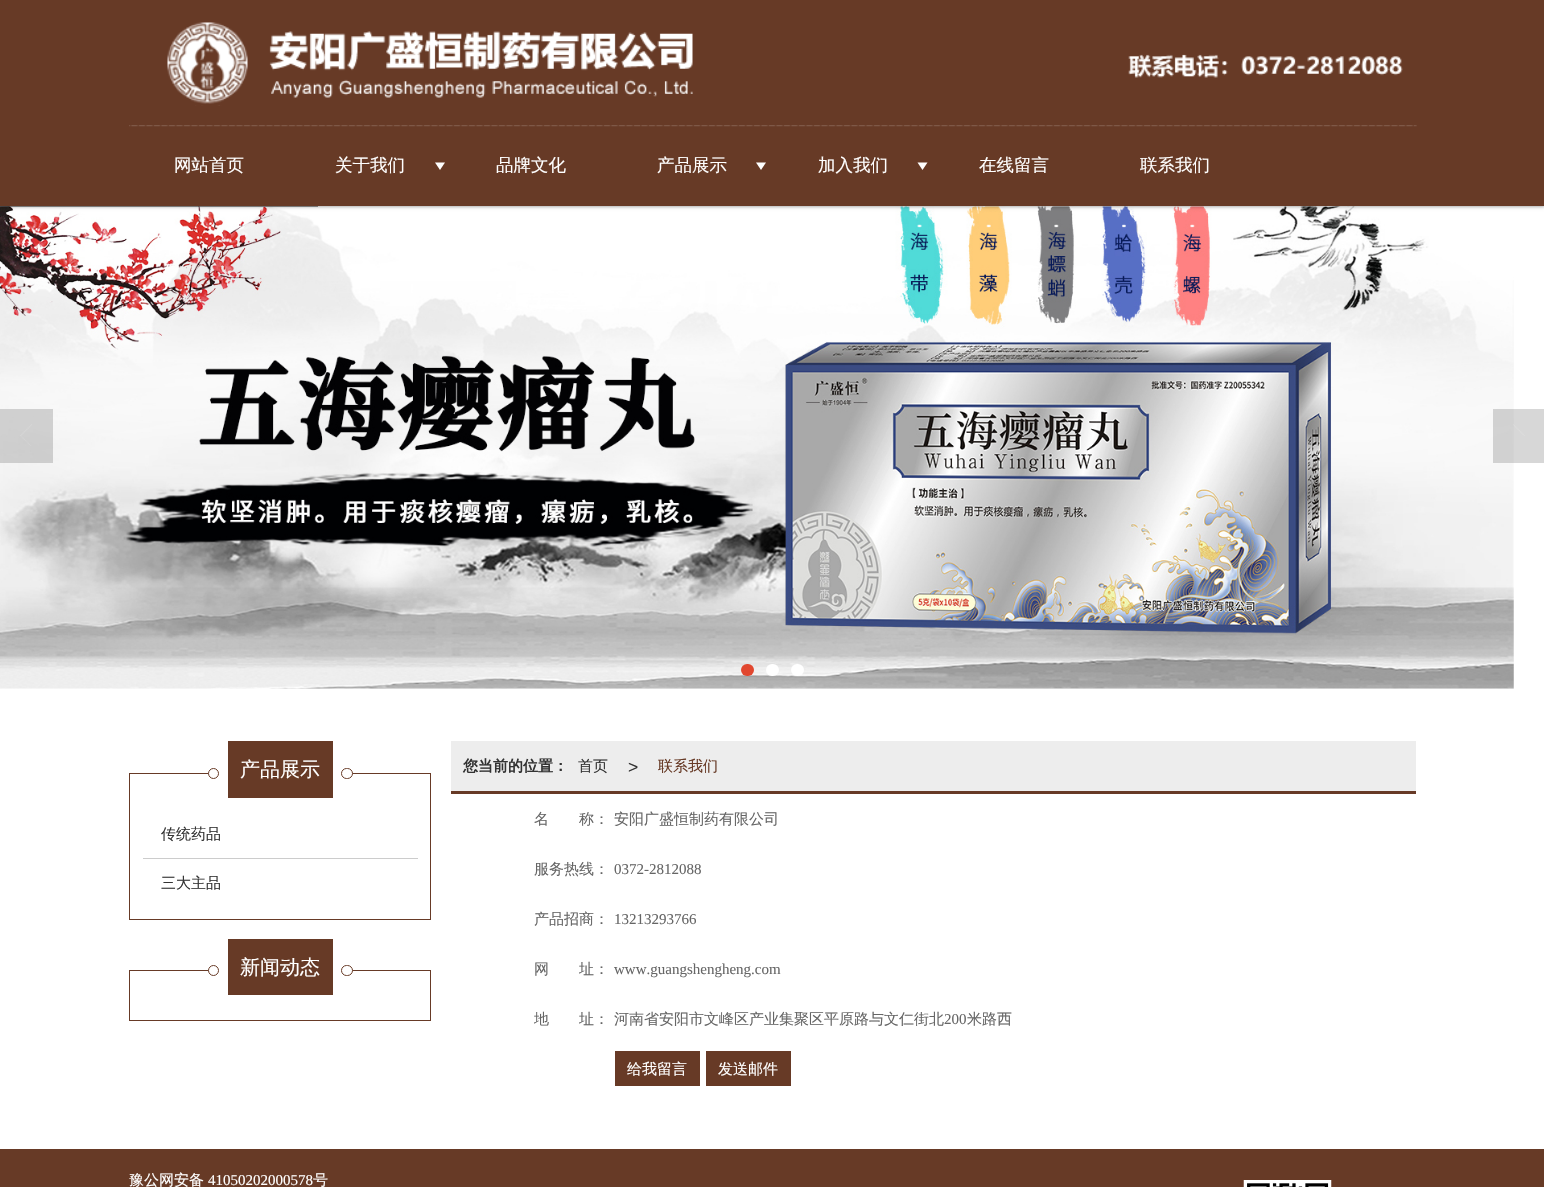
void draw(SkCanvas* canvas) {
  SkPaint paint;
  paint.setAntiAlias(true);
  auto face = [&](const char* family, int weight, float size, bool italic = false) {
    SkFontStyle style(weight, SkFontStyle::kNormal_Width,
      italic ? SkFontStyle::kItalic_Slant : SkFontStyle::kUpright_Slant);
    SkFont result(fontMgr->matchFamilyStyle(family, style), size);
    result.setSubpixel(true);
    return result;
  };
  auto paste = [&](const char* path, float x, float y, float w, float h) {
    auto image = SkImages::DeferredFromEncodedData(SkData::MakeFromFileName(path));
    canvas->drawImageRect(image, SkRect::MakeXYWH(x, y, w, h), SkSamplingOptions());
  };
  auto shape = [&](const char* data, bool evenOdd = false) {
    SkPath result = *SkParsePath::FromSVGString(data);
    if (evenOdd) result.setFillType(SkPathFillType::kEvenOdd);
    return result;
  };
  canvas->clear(0xffffffff);
  paste("img/3.png", 0, 206, 1514, 483);
  paint.setColor(0x66000000);
  canvas->drawRect(SkRect::MakeXYWH(0, 206, 318, 1), paint);
  paint.setColor(0x80000000);
  paint.setMaskFilter(SkMaskFilter::MakeBlur(kNormal_SkBlurStyle, 2));
  canvas->drawRect(SkRect::MakeXYWH(0, 0, 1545, 206), paint);
  paint.setMaskFilter(nullptr);
  paint.setColor(0xff673a26);
  canvas->drawRect(SkRect::MakeXYWH(0, 0, 1544, 206), paint);
  paste("img/1.png", 167, 22, 1236, 84);
  paste("img/2.png", 129, 125, 1288, 2);
  paint.setColor(0xffffffff);
  canvas->drawPath(shape("M435 162.5H445L440 170Z"), paint);
  canvas->drawPath(shape("M756 162.5H766L761 170Z"), paint);
  canvas->drawPath(shape("M917.5 162.5H927.5L922.5 170Z"), paint);
  paint.setColor(0x33393939);
  canvas->drawRect(SkRect::MakeXYWH(0, 409, 53, 54), paint);
  paste("img/4.png", 20, 424, 12, 22);
  canvas->drawRect(SkRect::MakeXYWH(1493, 409, 51, 54), paint);
  paste("img/5.png", 1513, 424, 12, 12);
  paint.setColor(0xffe1472f);
  canvas->drawRoundRect(SkRect::MakeXYWH(741, 664, 13, 12), 6, 6, paint);
  paint.setColor(0xffffffff);
  canvas->drawRoundRect(SkRect::MakeXYWH(766, 664, 13, 12), 6, 6, paint);
  canvas->drawRoundRect(SkRect::MakeXYWH(791, 664, 13, 12), 6, 6, paint);
  {
    const struct { float x, y, w, h; SkColor color; } items[] = {
      {430, 773, 1, 147, 0xff673a26},
      {129, 919, 302, 1, 0xff673a26},
      {129, 773, 1, 147, 0xff673a26},
      {129, 773, 302, 1, 0xff673a26},
      {218, 773, 10, 1, 0xffffffff},
    };
    for (auto [x, y, w, h, color] : items) {
      paint.setColor(color);
      canvas->drawRect(SkRect::MakeXYWH(x, y, w, h), paint);
    }
  }
  canvas->drawCircle(213.5f, 773.5f, 5, paint);
  paint.setStroke(true);
  paint.setStrokeWidth(1);
  paint.setColor(0xff673a26);
  canvas->drawCircle(213.5f, 773.5f, 5, paint);
  paint.setStroke(false);
  canvas->drawRect(SkRect::MakeXYWH(228, 741, 105, 57), paint);
  paint.setColor(0xffffffff);
  canvas->drawRect(SkRect::MakeXYWH(333, 773, 10, 1), paint);
  canvas->drawRoundRect(SkRect::MakeXYWH(341.5f, 768.5f, 11, 10), 5, 5, paint);
  paint.setStroke(true);
  paint.setColor(0xff673a26);
  canvas->drawRoundRect(SkRect::MakeXYWH(341.5f, 768.5f, 11, 10), 5, 5, paint);
  paint.setStroke(false);
  {
    const struct { float x, y, w, h; SkColor color; } items[] = {
      {143, 858, 275, 1, 0xffcccccc},
      {430, 970, 1, 51, 0xff673a26},
      {129, 1020, 302, 1, 0xff673a26},
      {129, 970, 1, 51, 0xff673a26},
      {129, 970, 302, 1, 0xff673a26},
      {218, 970, 10, 1, 0xffffffff},
    };
    for (auto [x, y, w, h, color] : items) {
      paint.setColor(color);
      canvas->drawRect(SkRect::MakeXYWH(x, y, w, h), paint);
    }
  }
  canvas->drawCircle(213.5f, 970.5f, 5, paint);
  paint.setStroke(true);
  paint.setColor(0xff673a26);
  canvas->drawCircle(213.5f, 970.5f, 5, paint);
  paint.setStroke(false);
  canvas->drawRect(SkRect::MakeXYWH(228, 939, 105, 56), paint);
  paint.setColor(0xffffffff);
  canvas->drawRect(SkRect::MakeXYWH(333, 970, 10, 1), paint);
  canvas->drawRoundRect(SkRect::MakeXYWH(341.5f, 965.5f, 11, 10), 5, 5, paint);
  paint.setStroke(true);
  paint.setColor(0xff673a26);
  canvas->drawRoundRect(SkRect::MakeXYWH(341.5f, 965.5f, 11, 10), 5, 5, paint);
  paint.setStroke(false);
  {
    const struct { float x, y, w, h; SkColor color; } items[] = {
      {451, 741, 965, 50, 0xffededed},
      {451, 791, 965, 3, 0xff673a26},
      {615, 1051, 85, 35, 0xff673a26},
      {706, 1051, 85, 35, 0xff673a26},
      {0, 1149, 1544, 38, 0xff673a26},
    };
    for (auto [x, y, w, h, color] : items) {
      paint.setColor(color);
      canvas->drawRect(SkRect::MakeXYWH(x, y, w, h), paint);
    }
  }
  paste("img/6.png", 1243, 1180, 89, 7);
  auto f0 = face("WenQuanYi Zen Hei", 500, 17.5f);
  paint.setColor(0xffffffff);
  {
    const struct { const char* s; float x, y; } items[] = {
      {"网站首页", 174, 171},
      {"关于我们", 335, 171},
      {"品牌文化", 496, 171},
      {"产品展示", 657, 171},
      {"加入我们", 818, 171},
      {"在线留言", 979, 171},
      {"联系我们", 1140, 171},
    };
    for (auto [s, x, y] : items) {
      canvas->drawString(s, x, y, f0, paint);
    }
  }
  auto f1 = face("WenQuanYi Zen Hei", 500, 20);
  canvas->drawString("产品展示", 240, 776, f1, paint);
  auto f2 = face("WenQuanYi Zen Hei", 500, 15);
  paint.setColor(0xff333333);
  canvas->drawString("传统药品", 161, 839, f2, paint);
  canvas->drawString("三大主品", 161, 888, f2, paint);
  paint.setColor(0xffffffff);
  canvas->drawString("新闻动态", 240, 974, f1, paint);
  auto f3 = face("WenQuanYi Zen Hei", 700, 15);
  paint.setColor(0xff333333);
  canvas->drawString("您当前的位置：", 463, 771, f3, paint);
  canvas->drawString("首页", 578, 771, f2, paint);
  auto f4 = face("Liberation Sans", 400, 17.5f);
  canvas->drawString(">", 628, 773, f4, paint);
  paint.setColor(0xff673a26);
  canvas->drawString("联系我们", 658, 771, f2, paint);
  paint.setColor(0xff666666);
  {
    const struct { const char* s; float x, y; } items[] = {
      {"名　　称：", 534, 824},
      {"安阳广盛恒制药有限公司", 614, 824},
      {"服务热线：", 534, 874},
    };
    for (auto [s, x, y] : items) {
      canvas->drawString(s, x, y, f2, paint);
    }
  }
  auto f5 = face("Liberation Serif", 400, 15);
  canvas->drawString("0372-2812088", 614, 874, f5, paint);
  canvas->drawString("产品招商：", 534, 924, f2, paint);
  canvas->drawString("13213293766", 614, 924, f5, paint);
  canvas->drawString("网　　址：", 534, 974, f2, paint);
  canvas->drawString("www.guangshengheng.com", 614, 974, f5, paint);
  canvas->drawString("地　　址：", 534, 1024, f2, paint);
  canvas->drawString("河南省安阳市文峰区产业集聚区平原路与文仁街北", 614, 1024, f2, paint);
  canvas->drawString("200", 944, 1024, f5, paint);
  canvas->drawString("米路西", 967, 1024, f2, paint);
  paint.setColor(0xffffffff);
  {
    const struct { const char* s; float x, y; } items[] = {
      {"给我留言", 627, 1074},
      {"发送邮件", 718, 1074},
      {"豫公网安备", 129, 1185},
    };
    for (auto [s, x, y] : items) {
      canvas->drawString(s, x, y, f2, paint);
    }
  }
  canvas->drawString("41050202000578", 208, 1185, f5, paint);
  canvas->drawString("号", 313, 1185, f2, paint);
}
